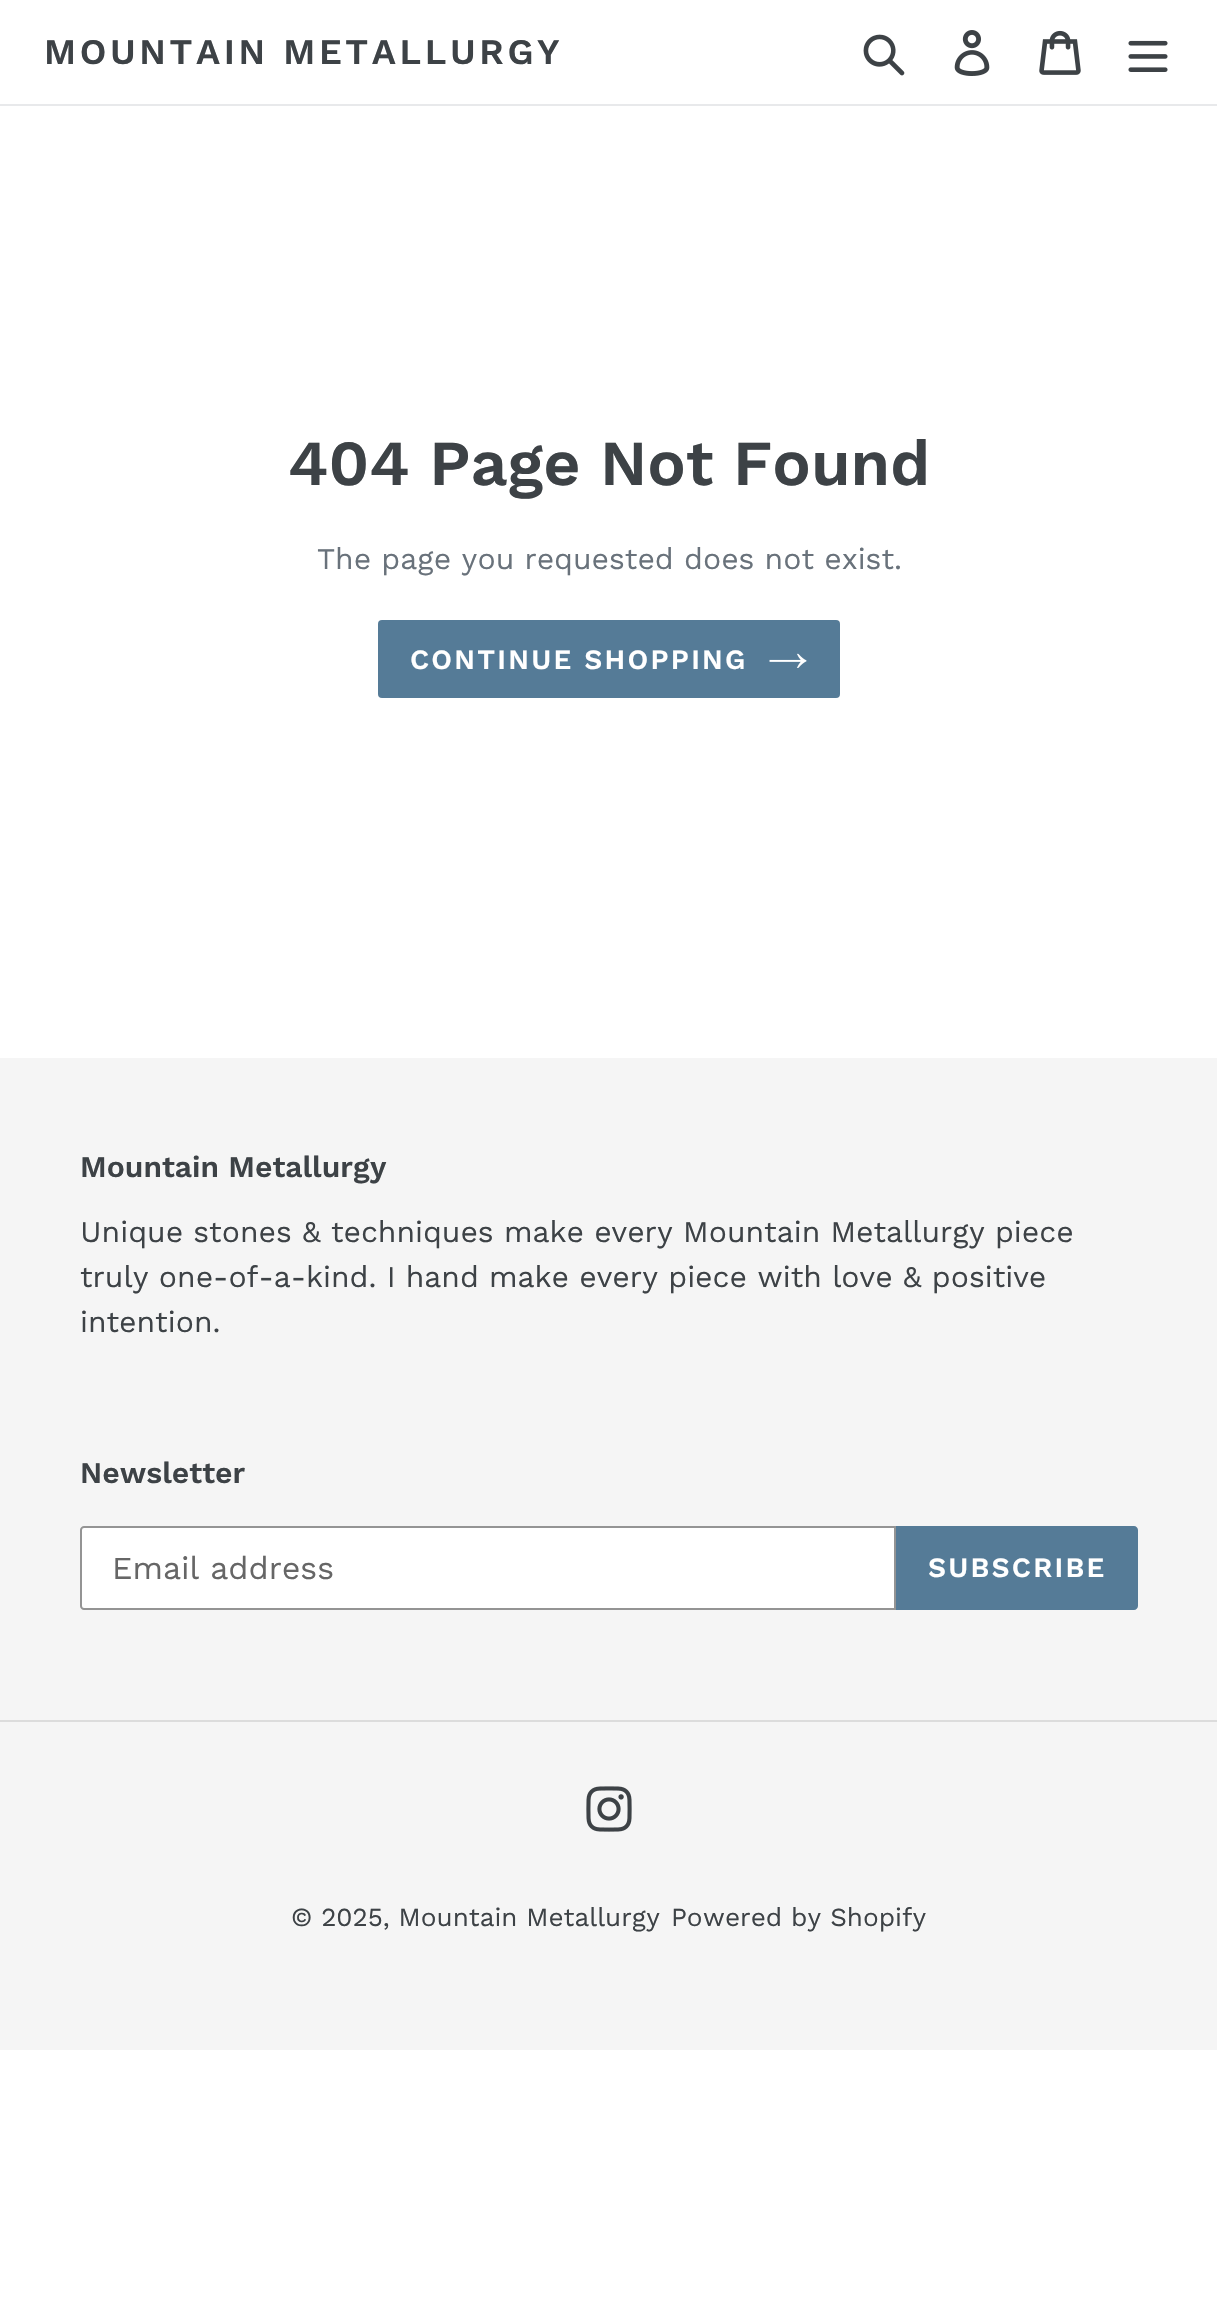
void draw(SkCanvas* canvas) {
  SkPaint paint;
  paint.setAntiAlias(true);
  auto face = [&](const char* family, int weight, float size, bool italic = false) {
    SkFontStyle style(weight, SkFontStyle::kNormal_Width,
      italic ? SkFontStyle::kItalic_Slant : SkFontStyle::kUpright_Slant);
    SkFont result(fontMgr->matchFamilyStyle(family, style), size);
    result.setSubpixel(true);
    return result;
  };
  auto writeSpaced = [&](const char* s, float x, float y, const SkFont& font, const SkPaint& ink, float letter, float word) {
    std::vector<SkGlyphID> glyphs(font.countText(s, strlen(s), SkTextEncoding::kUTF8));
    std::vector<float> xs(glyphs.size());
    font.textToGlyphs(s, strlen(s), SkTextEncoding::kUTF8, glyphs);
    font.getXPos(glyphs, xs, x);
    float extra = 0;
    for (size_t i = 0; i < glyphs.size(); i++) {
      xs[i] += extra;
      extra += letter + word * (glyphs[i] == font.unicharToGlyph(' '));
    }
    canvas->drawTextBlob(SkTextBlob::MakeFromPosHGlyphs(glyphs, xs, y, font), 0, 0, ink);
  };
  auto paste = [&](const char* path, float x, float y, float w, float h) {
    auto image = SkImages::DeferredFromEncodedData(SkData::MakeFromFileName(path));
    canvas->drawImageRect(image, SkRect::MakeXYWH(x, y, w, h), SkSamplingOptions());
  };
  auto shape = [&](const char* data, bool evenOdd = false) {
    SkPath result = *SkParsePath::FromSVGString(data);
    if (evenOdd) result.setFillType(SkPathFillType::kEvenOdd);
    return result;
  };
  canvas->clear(0xffffffff);
  paint.setColor(0xffe8e9eb);
  canvas->drawRect(SkRect::MakeXYWH(0, 104, 1217, 2), paint);
  paste("img/1.png", 863, 34, 42, 42);
  paste("img/2.png", 954, 30, 36, 46);
  paste("img/3.png", 1039, 30, 42, 45);
  paste("img/4.png", 1128, 40, 40, 32);
  paint.setColor(0xff557b97);
  canvas->drawRoundRect(SkRect::MakeXYWH(378, 620, 462, 78), 4, 4, paint);
  paste("img/5.png", 769, 653, 38, 15);
  paint.setColor(0xfff5f5f5);
  canvas->drawRect(SkRect::MakeXYWH(0, 1058, 1217, 992), paint);
  paint.setColor(0xffffffff);
  canvas->drawPath(shape("M84 1527H895V1609H84C82.5 1609 81 1607.5 81 1606V1530C81 1528.5 82.5 1527 84 1527Z"), paint);
  paint.setStroke(true);
  paint.setStrokeWidth(2);
  paint.setColor(0xff949494);
  canvas->drawPath(shape("M84 1527H895V1609H84C82.5 1609 81 1607.5 81 1606V1530C81 1528.5 82.5 1527 84 1527Z"), paint);
  paint.setStroke(false);
  paint.setColor(0xff557b97);
  canvas->drawPath(shape("M896 1526H1134C1136 1526 1138 1528 1138 1530V1606C1138 1608 1136 1610 1134 1610H896Z"), paint);
  paint.setColor(0xffdcdcdc);
  canvas->drawRect(SkRect::MakeXYWH(0, 1720, 1217, 2), paint);
  paste("img/6.png", 586, 1786, 46, 46);
  auto f0 = face("Work Sans", 600, 36);
  paint.setColor(0xff3d4246);
  writeSpaced("MOUNTAIN METALLURGY", 44, 64, f0, paint, 3.6f, 0);
  auto f1 = face("Work Sans", 600, 64);
  canvas->drawString("404 Page Not Found", 288, 485, f1, paint);
  auto f2 = face("Work Sans", 400, 30);
  paint.setColor(0xff69727b);
  canvas->drawString("The page you requested does not exist.", 317, 569, f2, paint);
  auto f3 = face("Work Sans", 600, 28);
  paint.setColor(0xffffffff);
  writeSpaced("CONTINUE SHOPPING", 410, 669, f3, paint, 2.25f, 0);
  auto f4 = face("Work Sans", 600, 30);
  paint.setColor(0xff3d4246);
  canvas->drawString("Mountain Metallurgy", 80, 1177, f4, paint);
  {
    const struct { const char* s; float x, y; } items[] = {
      {"Unique stones & techniques make every Mountain Metallurgy piece", 80, 1242},
      {"truly one-of-a-kind. I hand make every piece with love & positive", 80, 1287},
      {"intention.", 80, 1332},
    };
    for (auto [s, x, y] : items) {
      canvas->drawString(s, x, y, f2, paint);
    }
  }
  canvas->drawString("Newsletter", 80, 1483, f4, paint);
  auto f5 = face("Work Sans", 400, 32);
  paint.setColor(0xff666666);
  canvas->drawString("Email address", 112, 1579, f5, paint);
  paint.setColor(0xffffffff);
  writeSpaced("SUBSCRIBE", 928, 1577, f3, paint, 2.25f, 0);
  auto f6 = face("Work Sans", 400, 26);
  paint.setColor(0xff3d4246);
  canvas->drawString("© 2025, Mountain Metallurgy", 291, 1926, f6, paint);
  canvas->drawString("Powered by Shopify", 671, 1926, f6, paint);
}
